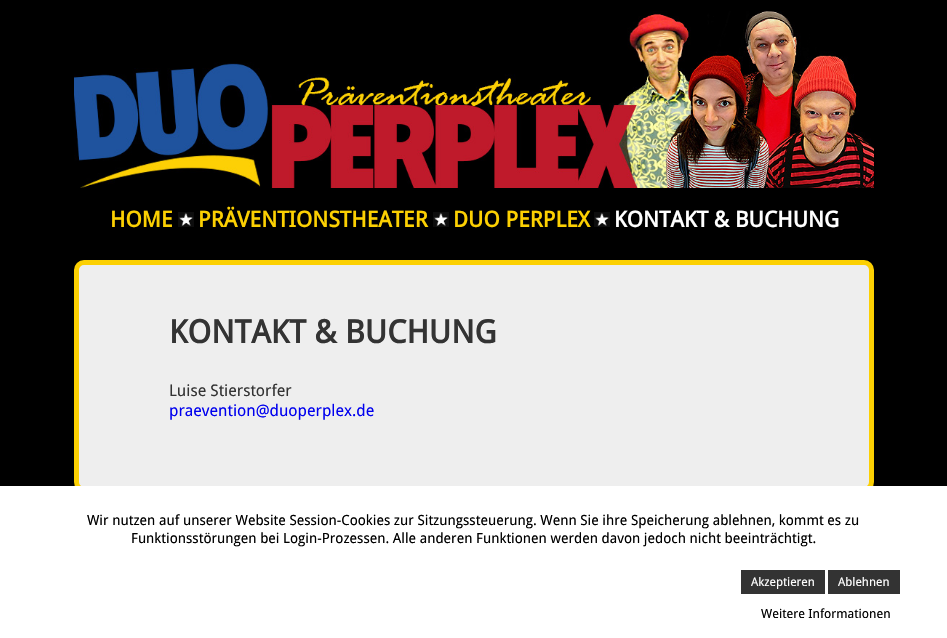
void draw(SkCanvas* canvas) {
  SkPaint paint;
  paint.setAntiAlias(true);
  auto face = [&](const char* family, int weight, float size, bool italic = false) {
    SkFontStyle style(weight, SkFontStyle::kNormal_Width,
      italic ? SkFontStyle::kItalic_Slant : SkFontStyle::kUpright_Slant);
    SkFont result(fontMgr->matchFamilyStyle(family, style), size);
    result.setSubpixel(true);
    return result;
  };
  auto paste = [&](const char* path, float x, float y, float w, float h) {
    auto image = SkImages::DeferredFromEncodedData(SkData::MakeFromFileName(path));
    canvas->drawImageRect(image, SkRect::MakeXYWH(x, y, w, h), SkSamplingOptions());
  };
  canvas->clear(0xff000000);
  paste("img/1.png", 74, 11, 800, 177);
  paste("img/2.png", 178, 212, 16, 15);
  paste("img/2.png", 433, 212, 16, 15);
  paste("img/2.png", 594, 212, 16, 15);
  paint.setColor(0xffeeeeee);
  canvas->drawRoundRect(SkRect::MakeXYWH(76.5f, 262.5f, 795, 227), 7.5f, 7.5f, paint);
  paint.setStroke(true);
  paint.setStrokeWidth(5);
  paint.setColor(0xfffcd002);
  canvas->drawRoundRect(SkRect::MakeXYWH(76.5f, 262.5f, 795, 227), 7.5f, 7.5f, paint);
  paint.setStroke(false);
  {
    const struct { float x, y, w, h; SkColor color; } items[] = {
      {0, 486, 947, 152, 0xffffffff},
      {741, 570, 84, 24, 0xff333333},
      {828, 570, 72, 24, 0xff333333},
    };
    for (auto [x, y, w, h, color] : items) {
      paint.setColor(color);
      canvas->drawRect(SkRect::MakeXYWH(x, y, w, h), paint);
    }
  }
  auto f0 = face("Droid Sans", 700, 22);
  paint.setColor(0xfffcd002);
  {
    const struct { const char* s; float x, y; } items[] = {
      {"HOME", 110, 227},
      {"PRÄVENTIONSTHEATER", 198, 227},
      {"DUO PERPLEX", 453, 227},
    };
    for (auto [s, x, y] : items) {
      canvas->drawString(s, x, y, f0, paint);
    }
  }
  paint.setColor(0xffffffff);
  canvas->drawString("KONTAKT & BUCHUNG", 614, 227, f0, paint);
  auto f1 = face("Droid Sans", 700, 32);
  paint.setColor(0xff333333);
  canvas->drawString("KONTAKT & BUCHUNG", 169, 343, f1, paint);
  auto f2 = face("Droid Sans", 400, 16);
  canvas->drawString("Luise Stierstorfer", 169, 396, f2, paint);
  paint.setColor(0xff0000ee);
  canvas->drawString("praevention@duoperplex.de", 169, 416, f2, paint);
  auto f3 = face("Droid Sans", 400, 14);
  paint.setColor(0xff000000);
  canvas->drawString("Wir nutzen auf unserer Website Session-Cookies zur Sitzungssteuerung. Wenn Sie ihre Speicherung ablehnen, kommt es zu", 87, 525, f3, paint);
  canvas->drawString("Funktionsstörungen bei Login-Prozessen. Alle anderen Funktionen werden davon jedoch nicht beeinträchtigt.", 131, 543, f3, paint);
  auto f4 = face("Droid Sans", 400, 12);
  paint.setColor(0xffffffff);
  canvas->drawString("Akzeptieren", 751, 586, f4, paint);
  canvas->drawString("Ablehnen", 838, 586, f4, paint);
  auto f5 = face("Droid Sans", 400, 12.6f);
  paint.setColor(0xff000000);
  canvas->drawString("Weitere Informationen", 761, 618, f5, paint);
}
